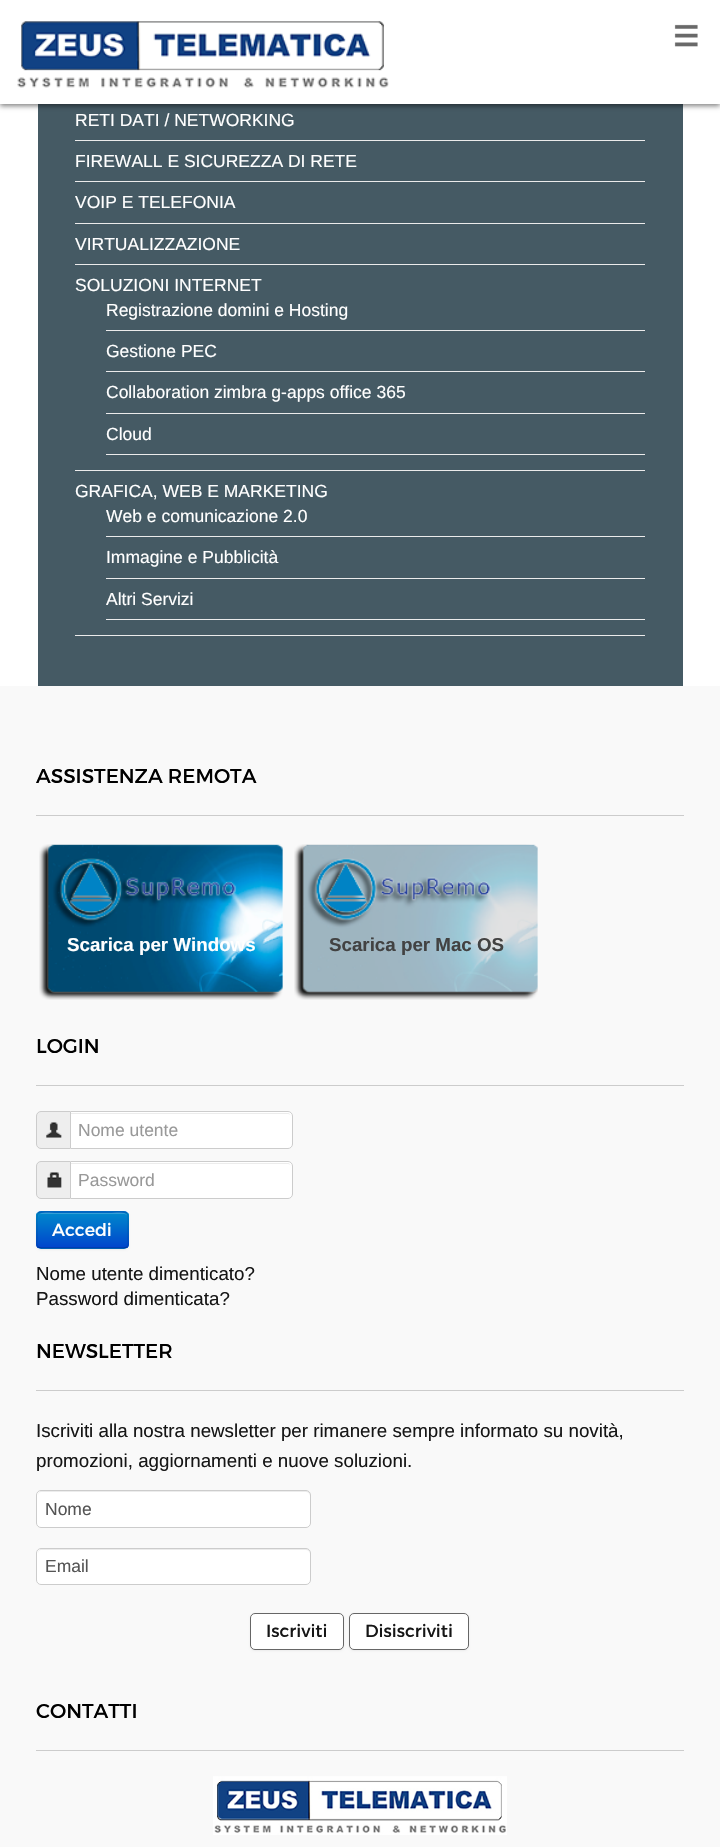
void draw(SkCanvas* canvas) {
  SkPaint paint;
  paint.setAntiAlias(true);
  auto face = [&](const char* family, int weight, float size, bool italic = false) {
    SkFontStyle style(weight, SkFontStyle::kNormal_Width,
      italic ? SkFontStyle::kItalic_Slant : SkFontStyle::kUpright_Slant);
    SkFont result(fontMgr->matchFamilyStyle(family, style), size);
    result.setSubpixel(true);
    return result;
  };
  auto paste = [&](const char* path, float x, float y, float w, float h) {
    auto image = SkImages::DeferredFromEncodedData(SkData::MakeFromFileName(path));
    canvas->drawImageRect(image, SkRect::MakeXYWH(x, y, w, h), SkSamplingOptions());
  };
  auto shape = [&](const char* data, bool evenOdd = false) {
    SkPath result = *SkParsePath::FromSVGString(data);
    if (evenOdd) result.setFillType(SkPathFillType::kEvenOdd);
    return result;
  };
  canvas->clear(0xffffffff);
  paint.setColor(0xff455a64);
  canvas->drawRect(SkRect::MakeXYWH(38, 104, 645, 582), paint);
  paint.setColor(0x7d000000);
  paint.setMaskFilter(SkMaskFilter::MakeBlur(kNormal_SkBlurStyle, 2.5f));
  canvas->drawRect(SkRect::MakeXYWH(0, 3, 720, 103), paint);
  paint.setMaskFilter(nullptr);
  paint.setColor(0xffffffff);
  canvas->drawRect(SkRect::MakeXYWH(0, 0, 720, 104), paint);
  paste("img/1.png", 17, 21, 372, 67);
  paste("img/2.png", 674, 24, 24, 23);
  {
    const struct { float x, y, w, h; SkColor color; } items[] = {
      {75, 140, 570, 1, 0xffebebeb},
      {75, 181, 570, 1, 0xffebebeb},
      {75, 223, 570, 1, 0xffebebeb},
      {75, 264, 570, 1, 0xffebebeb},
      {75, 470, 570, 1, 0xffebebeb},
      {106, 330, 539, 1, 0xffebebeb},
      {106, 371, 539, 1, 0xffebebeb},
      {106, 413, 539, 1, 0xffebebeb},
      {106, 454, 539, 1, 0xffebebeb},
      {75, 635, 570, 1, 0xffebebeb},
      {106, 536, 539, 1, 0xffebebeb},
      {106, 578, 539, 1, 0xffebebeb},
      {106, 619, 539, 1, 0xffebebeb},
      {0, 686, 720, 1161, 0xfff9f9f9},
      {36, 815, 648, 1, 0xffcccccc},
    };
    for (auto [x, y, w, h, color] : items) {
      paint.setColor(color);
      canvas->drawRect(SkRect::MakeXYWH(x, y, w, h), paint);
    }
  }
  paste("img/3.png", 39, 844, 244, 156);
  paste("img/4.png", 294, 844, 244, 156);
  canvas->drawRect(SkRect::MakeXYWH(36, 1085, 648, 1), paint);
  paint.setColor(0xffeeeeee);
  canvas->drawPath(shape("M41 1111.5H70.5V1148.5H41C38.5 1148.5 36.5 1146.5 36.5 1144V1116C36.5 1113.5 38.5 1111.5 41 1111.5Z"), paint);
  paint.setStroke(true);
  paint.setStrokeWidth(1);
  paint.setColor(0xffcccccc);
  canvas->drawPath(shape("M41 1111.5H70.5V1148.5H41C38.5 1148.5 36.5 1146.5 36.5 1144V1116C36.5 1113.5 38.5 1111.5 41 1111.5Z"), paint);
  paste("img/5.png", 46, 1122, 16, 16);
  paint.setStroke(false);
  paint.setColor(0xffffffff);
  canvas->drawPath(shape("M70 1111H288C291 1111 293 1113 293 1116V1144C293 1147 291 1149 288 1149H70Z"), paint);
  paint.setColor(0xffececec);
  canvas->drawPath(shape("M71 1114H288C290 1114 291 1115 291 1118C291 1115 290 1113 287 1113H71Z"), paint);
  paint.setStroke(true);
  paint.setColor(0xffcccccc);
  canvas->drawPath(shape("M70.5 1111.5H288C290.5 1111.5 292.5 1113.5 292.5 1116V1144C292.5 1146.5 290.5 1148.5 288 1148.5H70.5Z"), paint);
  paint.setStroke(false);
  paint.setColor(0xffeeeeee);
  canvas->drawPath(shape("M41 1161.5H70.5V1198.5H41C38.5 1198.5 36.5 1196.5 36.5 1194V1166C36.5 1163.5 38.5 1161.5 41 1161.5Z"), paint);
  paint.setStroke(true);
  paint.setColor(0xffcccccc);
  canvas->drawPath(shape("M41 1161.5H70.5V1198.5H41C38.5 1198.5 36.5 1196.5 36.5 1194V1166C36.5 1163.5 38.5 1161.5 41 1161.5Z"), paint);
  paste("img/6.png", 47, 1172, 15, 16);
  paint.setStroke(false);
  paint.setColor(0xffffffff);
  canvas->drawPath(shape("M70 1161H288C291 1161 293 1163 293 1166V1194C293 1197 291 1199 288 1199H70Z"), paint);
  paint.setColor(0xffececec);
  canvas->drawPath(shape("M71 1164H288C290 1164 291 1165 291 1168C291 1165 290 1163 287 1163H71Z"), paint);
  paint.setStroke(true);
  paint.setColor(0xffcccccc);
  canvas->drawPath(shape("M70.5 1161.5H288C290.5 1161.5 292.5 1163.5 292.5 1166V1194C292.5 1196.5 290.5 1198.5 288 1198.5H70.5Z"), paint);
  paint.setStroke(false);
  paint.setColor(0x0d000000);
  paint.setMaskFilter(SkMaskFilter::MakeBlur(kNormal_SkBlurStyle, 1));
  canvas->drawRoundRect(SkRect::MakeXYWH(36, 1213, 93, 37), 5, 5, paint);
  paint.setMaskFilter(nullptr);
  paint.setColor(0xff006dcc);
  canvas->drawRoundRect(SkRect::MakeXYWH(36, 1211, 93, 38), 5, 5, paint);
  canvas->save();
  canvas->clipPath(shape("M41 1211H124C127 1211 129 1213 129 1216V1244C129 1247 127 1249 124 1249H41C38 1249 36 1247 36 1244V1216C36 1213 38 1211 41 1211Z"), true);
  {
    const SkColor colors[] = {0xff0088cc, 0xff0044cc};
    const float stops[] = {0, 1};
    const SkPoint ends[] = {{83, 1213}, {83, 1248}};
    paint.setShader(SkGradientShader::MakeLinear(ends, colors, stops, 2, SkTileMode::kClamp));
    paint.setAlpha(255);
  }
  canvas->drawRect(SkRect::MakeXYWH(36, 1213, 93, 35), paint);
  canvas->restore();
  paint.setShader(nullptr);
  paint.setColor(0x33ffffff);
  canvas->drawPath(shape("M41 1214H124C126 1214 128 1215 128 1218C128 1210 115 1213 110 1213H56C51 1213 38 1210 38 1218C38 1215 39 1214 41 1214Z"), paint);
  paint.setStroke(true);
  paint.setStrokeWidth(1.2f);
  paint.setColor(0x40000000);
  canvas->drawPath(shape("M127 1247L124 1248H41L38 1247"), paint);
  paint.setColor(0x1a000000);
  canvas->drawPath(shape("M38 1247C36 1245 37 1241.5 37 1239V1230C37 1209.5 34 1212 55 1212H110C131 1212 128 1209.5 128 1230V1239C128 1241.5 129 1245 127 1247"), paint);
  paint.setStroke(false);
  paint.setColor(0xffcccccc);
  canvas->drawRect(SkRect::MakeXYWH(36, 1390, 648, 1), paint);
  paint.setColor(0xffffffff);
  canvas->drawRoundRect(SkRect::MakeXYWH(36, 1490, 275, 38), 5, 5, paint);
  paint.setColor(0xffececec);
  canvas->drawPath(shape("M41 1492H306C308 1492 310 1494 310 1496C310 1493 309 1491 306 1491H42C39 1491 38 1493 38 1496C38 1494 39 1492 41 1492Z"), paint);
  paint.setStroke(true);
  paint.setStrokeWidth(1);
  paint.setColor(0xffcccccc);
  canvas->drawRoundRect(SkRect::MakeXYWH(36.5f, 1490.5f, 274, 37), 4.5f, 4.5f, paint);
  paint.setStroke(false);
  paint.setColor(0xffffffff);
  canvas->drawRoundRect(SkRect::MakeXYWH(36, 1548, 275, 37), 5, 5, paint);
  paint.setColor(0xffececec);
  canvas->drawPath(shape("M41 1550H306C308 1550 310 1552 310 1554C310 1551 309 1549 306 1549H42C39 1549 38 1551 38 1554C38 1552 39 1550 41 1550Z"), paint);
  paint.setStroke(true);
  paint.setColor(0xffcccccc);
  canvas->drawRoundRect(SkRect::MakeXYWH(36.5f, 1548.5f, 274, 36), 4.5f, 4.5f, paint);
  paint.setStroke(false);
  paint.setColor(0x0d000000);
  paint.setMaskFilter(SkMaskFilter::MakeBlur(kNormal_SkBlurStyle, 1));
  canvas->drawRoundRect(SkRect::MakeXYWH(250, 1614, 94, 37), 5, 5, paint);
  paint.setMaskFilter(nullptr);
  paint.setColor(0xffffffff);
  canvas->drawRoundRect(SkRect::MakeXYWH(250.5f, 1613.5f, 93, 36), 4.5f, 4.5f, paint);
  paint.setStroke(true);
  paint.setColor(0xff666666);
  canvas->drawRoundRect(SkRect::MakeXYWH(250.5f, 1613.5f, 93, 36), 4.5f, 4.5f, paint);
  paint.setStroke(false);
  paint.setColor(0x0d000000);
  paint.setMaskFilter(SkMaskFilter::MakeBlur(kNormal_SkBlurStyle, 1));
  canvas->drawRoundRect(SkRect::MakeXYWH(349, 1614, 120, 37), 5, 5, paint);
  paint.setMaskFilter(nullptr);
  paint.setColor(0xffffffff);
  canvas->drawRoundRect(SkRect::MakeXYWH(349.5f, 1613.5f, 119, 36), 4.5f, 4.5f, paint);
  paint.setStroke(true);
  paint.setColor(0xff666666);
  canvas->drawRoundRect(SkRect::MakeXYWH(349.5f, 1613.5f, 119, 36), 4.5f, 4.5f, paint);
  paint.setStroke(false);
  paint.setColor(0xffcccccc);
  canvas->drawRect(SkRect::MakeXYWH(36, 1750, 648, 1), paint);
  paste("img/7.png", 213, 1776, 294, 59);
  auto f0 = face("Liberation Sans", 400, 17.5f);
  paint.setColor(0xffffffff);
  {
    const struct { const char* s; float x, y; } items[] = {
      {"RETI DATI / NETWORKING", 75, 126},
      {"FIREWALL E SICUREZZA DI RETE", 75, 167},
      {"VOIP E TELEFONIA", 75, 208},
      {"VIRTUALIZZAZIONE", 75, 250},
      {"SOLUZIONI INTERNET", 75, 291},
      {"Registrazione domini e Hosting", 106, 316},
      {"Gestione PEC", 106, 357},
      {"Collaboration zimbra g-apps office 365", 106, 398},
      {"Cloud", 106, 440},
      {"GRAFICA, WEB E MARKETING", 75, 497},
      {"Web e comunicazione 2.0", 106, 522},
      {"Immagine e Pubblicità", 106, 563},
      {"Altri Servizi", 106, 605},
    };
    for (auto [s, x, y] : items) {
      canvas->drawString(s, x, y, f0, paint);
    }
  }
  auto f1 = face("Montserrat", 400, 20);
  paint.setColor(0xff000000);
  canvas->drawString("ASSISTENZA REMOTA", 36, 783, f1, paint);
  auto f2 = face("Liberation Sans", 700, 18.75f);
  paint.setColor(0xffffffff);
  canvas->drawString("Scarica per Windows", 67, 951, f2, paint);
  paint.setColor(0xff424242);
  canvas->drawString("Scarica per Mac OS", 329, 951, f2, paint);
  paint.setColor(0xff000000);
  canvas->drawString("LOGIN", 36, 1053, f1, paint);
  paint.setColor(0xff999999);
  canvas->drawString("Nome utente", 78, 1136, f0, paint);
  canvas->drawString("Password", 78, 1186, f0, paint);
  auto f3 = face("Montserrat", 400, 17.5f);
  paint.setColor(0xffffffff);
  canvas->drawString("Accedi", 52, 1236, f3, paint);
  auto f4 = face("Liberation Sans", 400, 18.75f);
  paint.setColor(0xff161616);
  canvas->drawString("Nome utente dimenticato?", 36, 1280, f4, paint);
  canvas->drawString("Password dimenticata?", 36, 1305, f4, paint);
  paint.setColor(0xff000000);
  canvas->drawString("NEWSLETTER", 36, 1358, f1, paint);
  paint.setColor(0xff161616);
  canvas->drawString("Iscriviti alla nostra newsletter per rimanere sempre informato su novità,", 36, 1437, f4, paint);
  canvas->drawString("promozioni, aggiornamenti e nuove soluzioni.", 36, 1467, f4, paint);
  paint.setColor(0xff555555);
  canvas->drawString("Nome", 45, 1515, f0, paint);
  canvas->drawString("Email", 45, 1572, f0, paint);
  paint.setColor(0xff161616);
  canvas->drawString("Iscriviti", 266, 1637, f3, paint);
  canvas->drawString("Disiscriviti", 365, 1637, f3, paint);
  paint.setColor(0xff000000);
  canvas->drawString("CONTATTI", 36, 1718, f1, paint);
}
